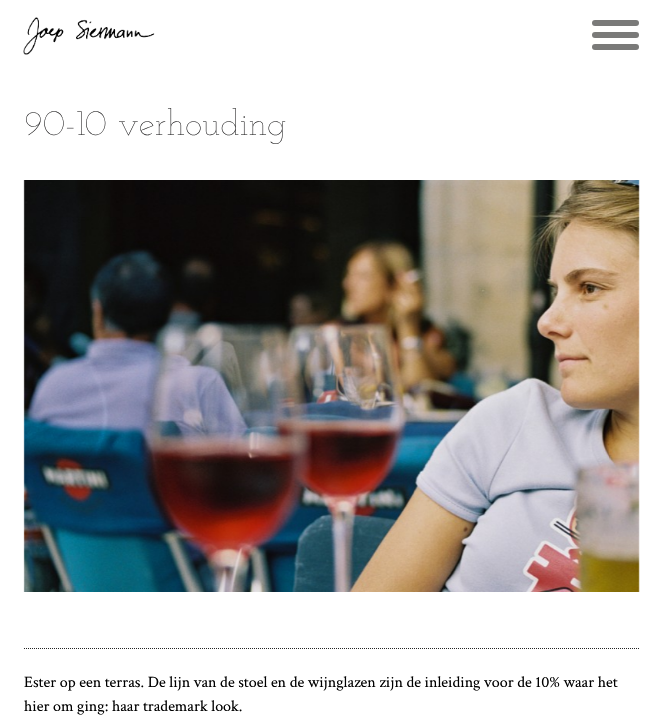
void draw(SkCanvas* canvas) {
  SkPaint paint;
  paint.setAntiAlias(true);
  auto face = [&](const char* family, int weight, float size, bool italic = false) {
    SkFontStyle style(weight, SkFontStyle::kNormal_Width,
      italic ? SkFontStyle::kItalic_Slant : SkFontStyle::kUpright_Slant);
    SkFont result(fontMgr->matchFamilyStyle(family, style), size);
    result.setSubpixel(true);
    return result;
  };
  auto paste = [&](const char* path, float x, float y, float w, float h) {
    auto image = SkImages::DeferredFromEncodedData(SkData::MakeFromFileName(path));
    canvas->drawImageRect(image, SkRect::MakeXYWH(x, y, w, h), SkSamplingOptions());
  };
  auto shape = [&](const char* data, bool evenOdd = false) {
    SkPath result = *SkParsePath::FromSVGString(data);
    if (evenOdd) result.setFillType(SkPathFillType::kEvenOdd);
    return result;
  };
  canvas->clear(0xffffffff);
  paste("img/1.png", 23, 17, 132, 38);
  paint.setColor(0xff7a7a79);
  canvas->drawRoundRect(SkRect::MakeXYWH(592, 32, 47, 6), 3, 3, paint);
  canvas->drawRoundRect(SkRect::MakeXYWH(592, 20, 47, 6), 3, 3, paint);
  canvas->drawRoundRect(SkRect::MakeXYWH(592, 44, 47, 6), 3, 3, paint);
  paste("img/2.png", 23, 180, 617, 412);
  paint.setStroke(true);
  paint.setStrokeWidth(1);
  paint.setColor(0xff242423);
  paint.setPathEffect(SkDashPathEffect::Make({{1, 1}}, 0));
  canvas->drawPath(shape("M24 648.5H639"), paint);
  paint.setPathEffect(nullptr);
  auto f0 = face("Josefin Slab", 100, 36);
  paint.setStroke(false);
  paint.setColor(0xff262526);
  canvas->drawString("90-10 verhouding", 24, 135, f0, paint);
  auto f1 = face("Crimson Text", 400, 16);
  paint.setColor(0xff000000);
  canvas->drawString("Ester op een terras. De lijn van de stoel en de wijnglazen zijn de inleiding voor de 10% waar het", 24, 687, f1, paint);
  canvas->drawString("hier om ging: haar trademark look.", 24, 711, f1, paint);
}
